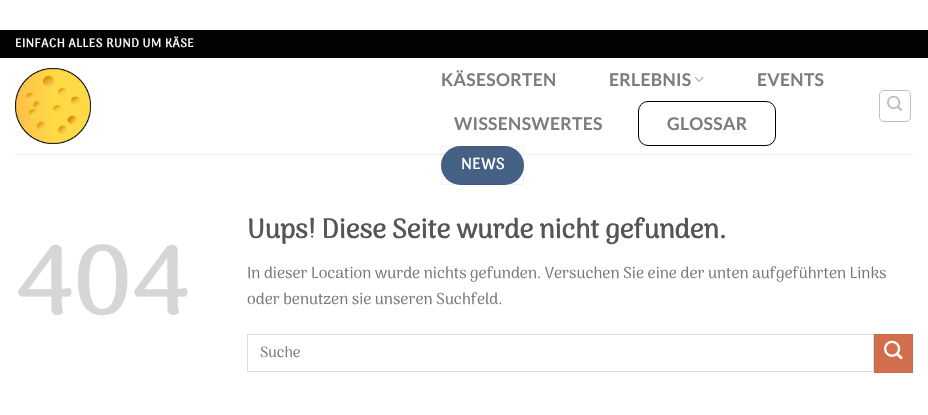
void draw(SkCanvas* canvas) {
  SkPaint paint;
  paint.setAntiAlias(true);
  auto face = [&](const char* family, int weight, float size, bool italic = false) {
    SkFontStyle style(weight, SkFontStyle::kNormal_Width,
      italic ? SkFontStyle::kItalic_Slant : SkFontStyle::kUpright_Slant);
    SkFont result(fontMgr->matchFamilyStyle(family, style), size);
    result.setSubpixel(true);
    return result;
  };
  auto writeSpaced = [&](const char* s, float x, float y, const SkFont& font, const SkPaint& ink, float letter, float word) {
    std::vector<SkGlyphID> glyphs(font.countText(s, strlen(s), SkTextEncoding::kUTF8));
    std::vector<float> xs(glyphs.size());
    font.textToGlyphs(s, strlen(s), SkTextEncoding::kUTF8, glyphs);
    font.getXPos(glyphs, xs, x);
    float extra = 0;
    for (size_t i = 0; i < glyphs.size(); i++) {
      xs[i] += extra;
      extra += letter + word * (glyphs[i] == font.unicharToGlyph(' '));
    }
    canvas->drawTextBlob(SkTextBlob::MakeFromPosHGlyphs(glyphs, xs, y, font), 0, 0, ink);
  };
  auto paste = [&](const char* path, float x, float y, float w, float h) {
    auto image = SkImages::DeferredFromEncodedData(SkData::MakeFromFileName(path));
    canvas->drawImageRect(image, SkRect::MakeXYWH(x, y, w, h), SkSamplingOptions());
  };
  canvas->clear(0xffffffff);
  paint.setColor(0xff020202);
  canvas->drawRect(SkRect::MakeXYWH(0, 30, 928, 28), paint);
  paste("img/1.png", 15, 68, 76, 76);
  paste("img/2.png", 694, 76, 10, 6);
  paint.setStroke(true);
  paint.setStrokeWidth(1);
  paint.setColor(0xff000000);
  canvas->drawRoundRect(SkRect::MakeXYWH(638.5f, 101.5f, 137, 44), 9.5f, 9.5f, paint);
  paint.setStroke(false);
  paint.setColor(0xff446084);
  canvas->drawRoundRect(SkRect::MakeXYWH(441, 146, 83, 39), 19.5f, 19.5f, paint);
  paint.setStroke(true);
  paint.setColor(0x0d000000);
  canvas->drawRect(SkRect::MakeXYWH(441.5f, 146.5f, 82, 38), paint);
  paint.setColor(0xffc0c0c0);
  canvas->drawRoundRect(SkRect::MakeXYWH(879.5f, 90.5f, 31, 31), 4.5f, 4.5f, paint);
  paste("img/3.png", 887, 95, 16, 16);
  paint.setStroke(false);
  paint.setColor(0x1a777777);
  canvas->drawRect(SkRect::MakeXYWH(15, 154, 898, 1), paint);
  paint.setStroke(true);
  paint.setColor(0xffdddddd);
  canvas->drawRect(SkRect::MakeXYWH(247.5f, 334.5f, 626, 37), paint);
  paint.setStroke(false);
  paint.setColor(0xffd26e4b);
  canvas->drawRect(SkRect::MakeXYWH(874.5f, 334.5f, 38, 38), paint);
  paint.setStroke(true);
  paint.setColor(0xffc86947);
  canvas->drawRect(SkRect::MakeXYWH(874.5f, 334.5f, 38, 38), paint);
  paste("img/4.png", 884, 340, 19, 20);
  auto f0 = face("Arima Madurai", 700, 11.9f);
  paint.setStroke(false);
  paint.setColor(0xffffffff);
  writeSpaced("EINFACH ALLES RUND UM KÄSE", 15, 47, f0, paint, 0.6f, 0);
  auto f1 = face("Lato", 700, 17.5f);
  paint.setColor(0xff7d7d7d);
  {
    const struct { const char* s; float x, y; } items[] = {
      {"KÄSESORTEN", 441, 86},
      {"ERLEBNIS", 609, 86},
      {"EVENTS", 757, 86},
      {"WISSENSWERTES", 454, 130},
      {"GLOSSAR", 667, 130},
    };
    for (auto [s, x, y] : items) {
      writeSpaced(s, x, y, f1, paint, 0.3f, 0);
    }
  }
  auto f2 = face("Arima Madurai", 700, 15.5f);
  paint.setColor(0xffffffff);
  writeSpaced("NEWS", 461, 169, f2, paint, 0.5f, 0);
  auto f3 = face("Arima Madurai", 700, 95);
  paint.setColor(0xffd6d6d6);
  canvas->drawString("404", 15, 314, f3, paint);
  auto f4 = face("Arima Madurai", 700, 26.9f);
  paint.setColor(0xff555555);
  canvas->drawString("Uups! Diese Seite wurde nicht gefunden.", 247, 238, f4, paint);
  auto f5 = face("Arima Madurai", 400, 15.85f);
  paint.setColor(0xff777777);
  canvas->drawString("In dieser Location wurde nichts gefunden. Versuchen Sie eine der unten aufgeführten Links", 247, 278, f5, paint);
  canvas->drawString("oder benutzen sie unseren Suchfeld.", 247, 304, f5, paint);
  auto f6 = face("Arima Madurai", 400, 15);
  canvas->drawString("Suche", 260, 357, f6, paint);
}
